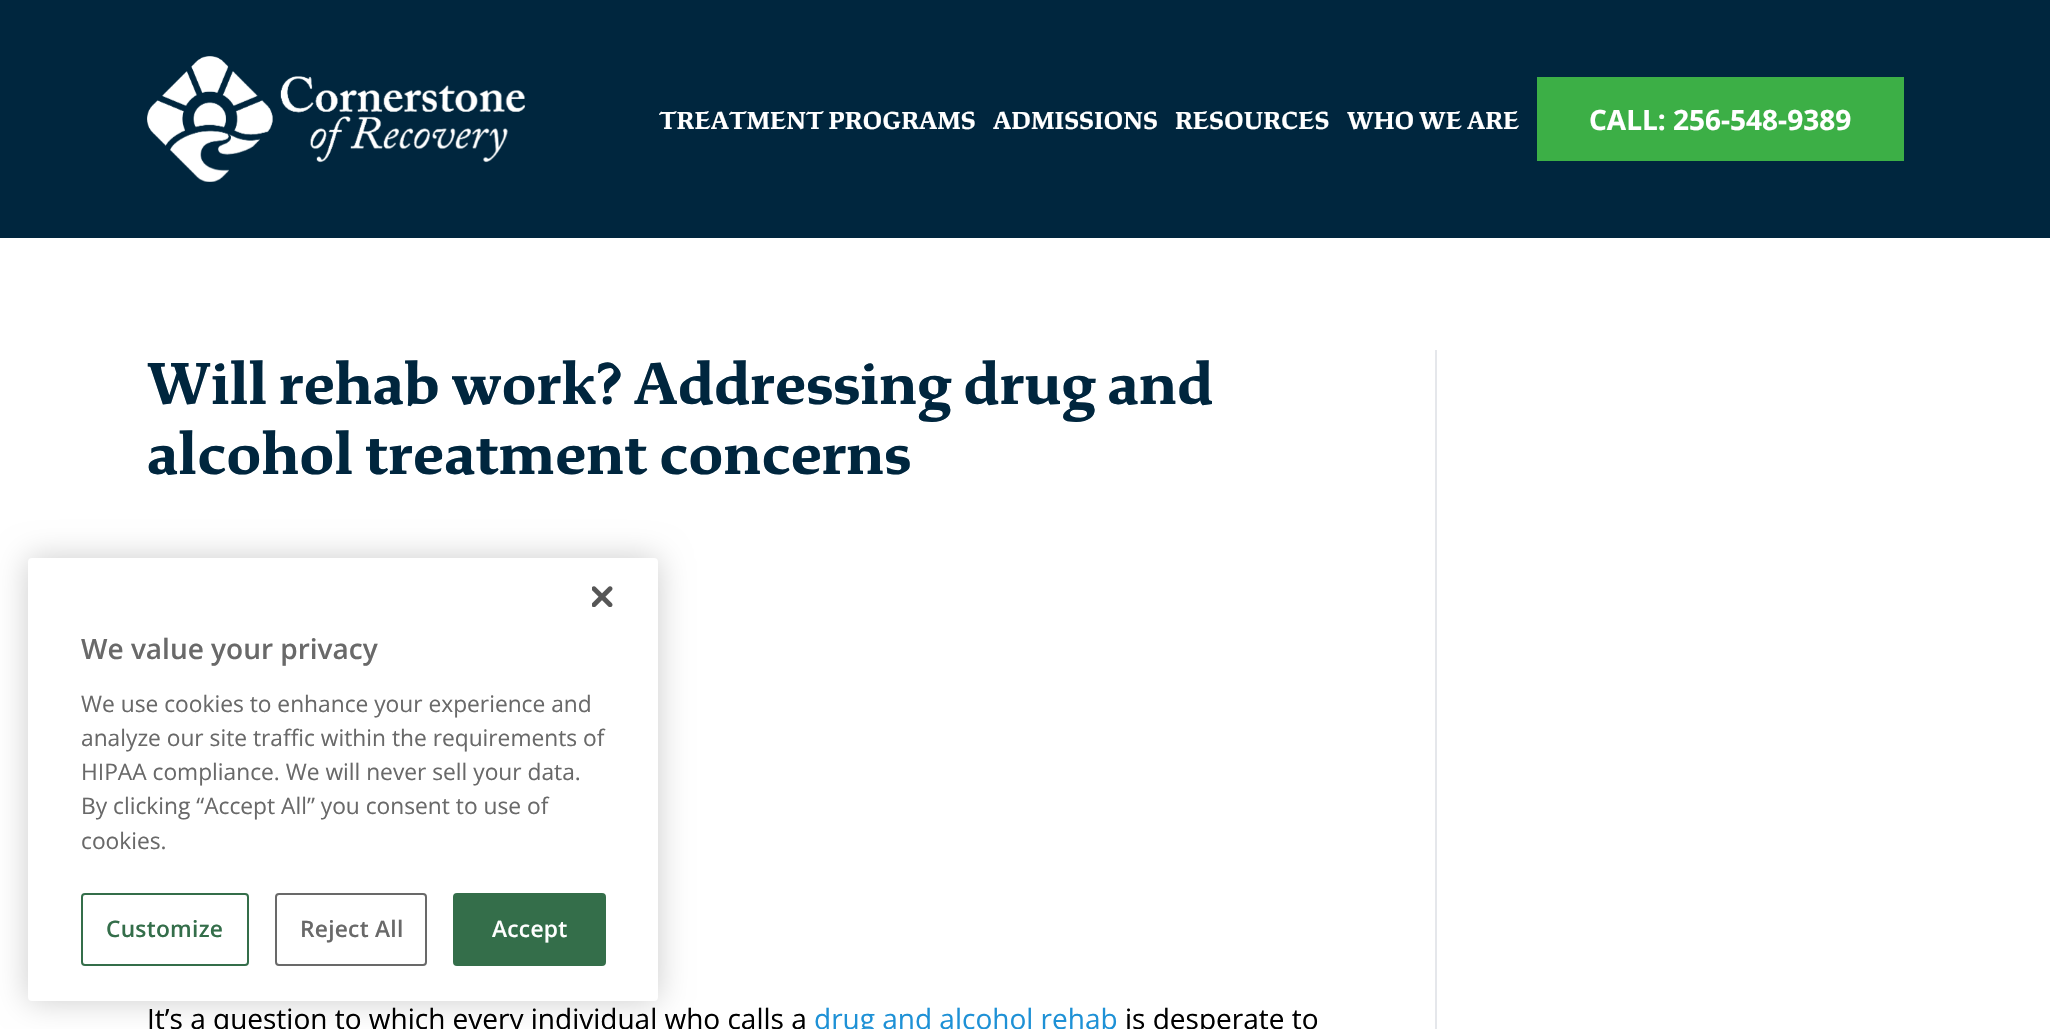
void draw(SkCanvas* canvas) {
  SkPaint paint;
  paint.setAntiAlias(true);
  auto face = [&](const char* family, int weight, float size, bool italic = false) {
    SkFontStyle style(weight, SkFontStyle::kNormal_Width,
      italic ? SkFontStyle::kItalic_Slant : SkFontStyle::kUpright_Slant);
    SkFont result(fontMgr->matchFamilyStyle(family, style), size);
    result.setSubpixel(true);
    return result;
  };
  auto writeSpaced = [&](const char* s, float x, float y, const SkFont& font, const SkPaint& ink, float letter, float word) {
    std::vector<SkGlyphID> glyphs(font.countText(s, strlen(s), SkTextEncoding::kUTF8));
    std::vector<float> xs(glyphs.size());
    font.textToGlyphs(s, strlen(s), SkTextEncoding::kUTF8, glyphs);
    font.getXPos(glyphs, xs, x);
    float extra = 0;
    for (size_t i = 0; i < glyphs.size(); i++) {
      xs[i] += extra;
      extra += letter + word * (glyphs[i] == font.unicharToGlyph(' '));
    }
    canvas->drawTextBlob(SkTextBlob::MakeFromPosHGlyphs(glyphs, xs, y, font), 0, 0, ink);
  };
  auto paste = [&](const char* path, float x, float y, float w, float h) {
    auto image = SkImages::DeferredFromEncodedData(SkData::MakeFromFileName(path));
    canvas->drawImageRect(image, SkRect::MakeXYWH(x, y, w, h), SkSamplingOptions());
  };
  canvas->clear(0xffffffff);
  paint.setColor(0xff00263e);
  canvas->drawRect(SkRect::MakeXYWH(0, 0, 2050, 238), paint);
  paste("img/1.png", 147, 56, 378, 126);
  paint.setColor(0xff3caf46);
  canvas->drawRect(SkRect::MakeXYWH(1537, 77, 367, 84), paint);
  paint.setColor(0xffe5e7eb);
  canvas->drawRect(SkRect::MakeXYWH(1435, 350, 2, 679), paint);
  paint.setColor(0x33000000);
  paint.setMaskFilter(SkMaskFilter::MakeBlur(kNormal_SkBlurStyle, 16));
  canvas->drawRoundRect(SkRect::MakeXYWH(28, 558, 630, 443), 4, 4, paint);
  paint.setMaskFilter(nullptr);
  paint.setColor(0xffffffff);
  canvas->drawRoundRect(SkRect::MakeXYWH(28, 558, 630, 443), 4, 4, paint);
  paste("img/2.png", 592, 586, 21, 21);
  paint.setStroke(true);
  paint.setStrokeWidth(2);
  paint.setColor(0xff346e4a);
  canvas->drawRoundRect(SkRect::MakeXYWH(82, 894, 166, 71), 3, 3, paint);
  paint.setColor(0xff696969);
  canvas->drawRoundRect(SkRect::MakeXYWH(276, 894, 150, 71), 3, 3, paint);
  paint.setStroke(false);
  paint.setColor(0xff346e4a);
  canvas->drawRoundRect(SkRect::MakeXYWH(454, 894, 151, 71), 3, 3, paint);
  paint.setStroke(true);
  canvas->drawRoundRect(SkRect::MakeXYWH(454, 894, 151, 71), 3, 3, paint);
  auto f0 = face("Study", 700, 26.25f);
  paint.setStroke(false);
  paint.setColor(0xffffffff);
  {
    const struct { const char* s; float x, y; } items[] = {
      {"TREATMENT PROGRAMS", 659, 129},
      {"ADMISSIONS", 993, 129},
      {"RESOURCES", 1175, 129},
      {"WHO WE ARE", 1347, 129},
    };
    for (auto [s, x, y] : items) {
      canvas->drawString(s, x, y, f0, paint);
    }
  }
  auto f1 = face("Open Sans", 700, 28);
  canvas->drawString("CALL: 256-548-9389", 1589, 130, f1, paint);
  auto f2 = face("Study", 700, 63);
  paint.setColor(0xff00263e);
  canvas->drawString("Will rehab work? Addressing drug and", 147, 404, f2, paint);
  canvas->drawString("alcohol treatment concerns", 147, 474, f2, paint);
  auto f3 = face("Open Sans", 400, 28);
  paint.setColor(0xff000000);
  canvas->drawString("It’s a question to which every individual who calls a", 147, 1029, f3, paint);
  paint.setColor(0xff1e91d6);
  canvas->drawString("drug and alcohol rehab", 814, 1029, f3, paint);
  paint.setColor(0xff000000);
  canvas->drawString("is desperate to", 1125, 1029, f3, paint);
  auto f4 = face("Open Sans", 600, 28);
  paint.setColor(0xff696969);
  canvas->drawString("We value your privacy", 81, 659, f4, paint);
  auto f5 = face("Open Sans", 400, 22.75f);
  {
    const struct { const char* s; float x, y; } items[] = {
      {"We use cookies to enhance your experience and", 81, 712},
      {"analyze our site traffic within the requirements of", 81, 746},
      {"HIPAA compliance. We will never sell your data.", 81, 780},
      {"By clicking “Accept All” you consent to use of", 81, 814},
      {"cookies.", 81, 849},
    };
    for (auto [s, x, y] : items) {
      canvas->drawString(s, x, y, f5, paint);
    }
  }
  auto f6 = face("Open Sans", 600, 22.75f);
  paint.setColor(0xff346e4a);
  writeSpaced("Customize", 106, 937, f6, paint, 0.25f, 0);
  paint.setColor(0xff696969);
  writeSpaced("Reject All", 300, 937, f6, paint, 0.25f, 0);
  paint.setColor(0xffffffff);
  writeSpaced("Accept", 492, 937, f6, paint, 0.25f, 0);
}
